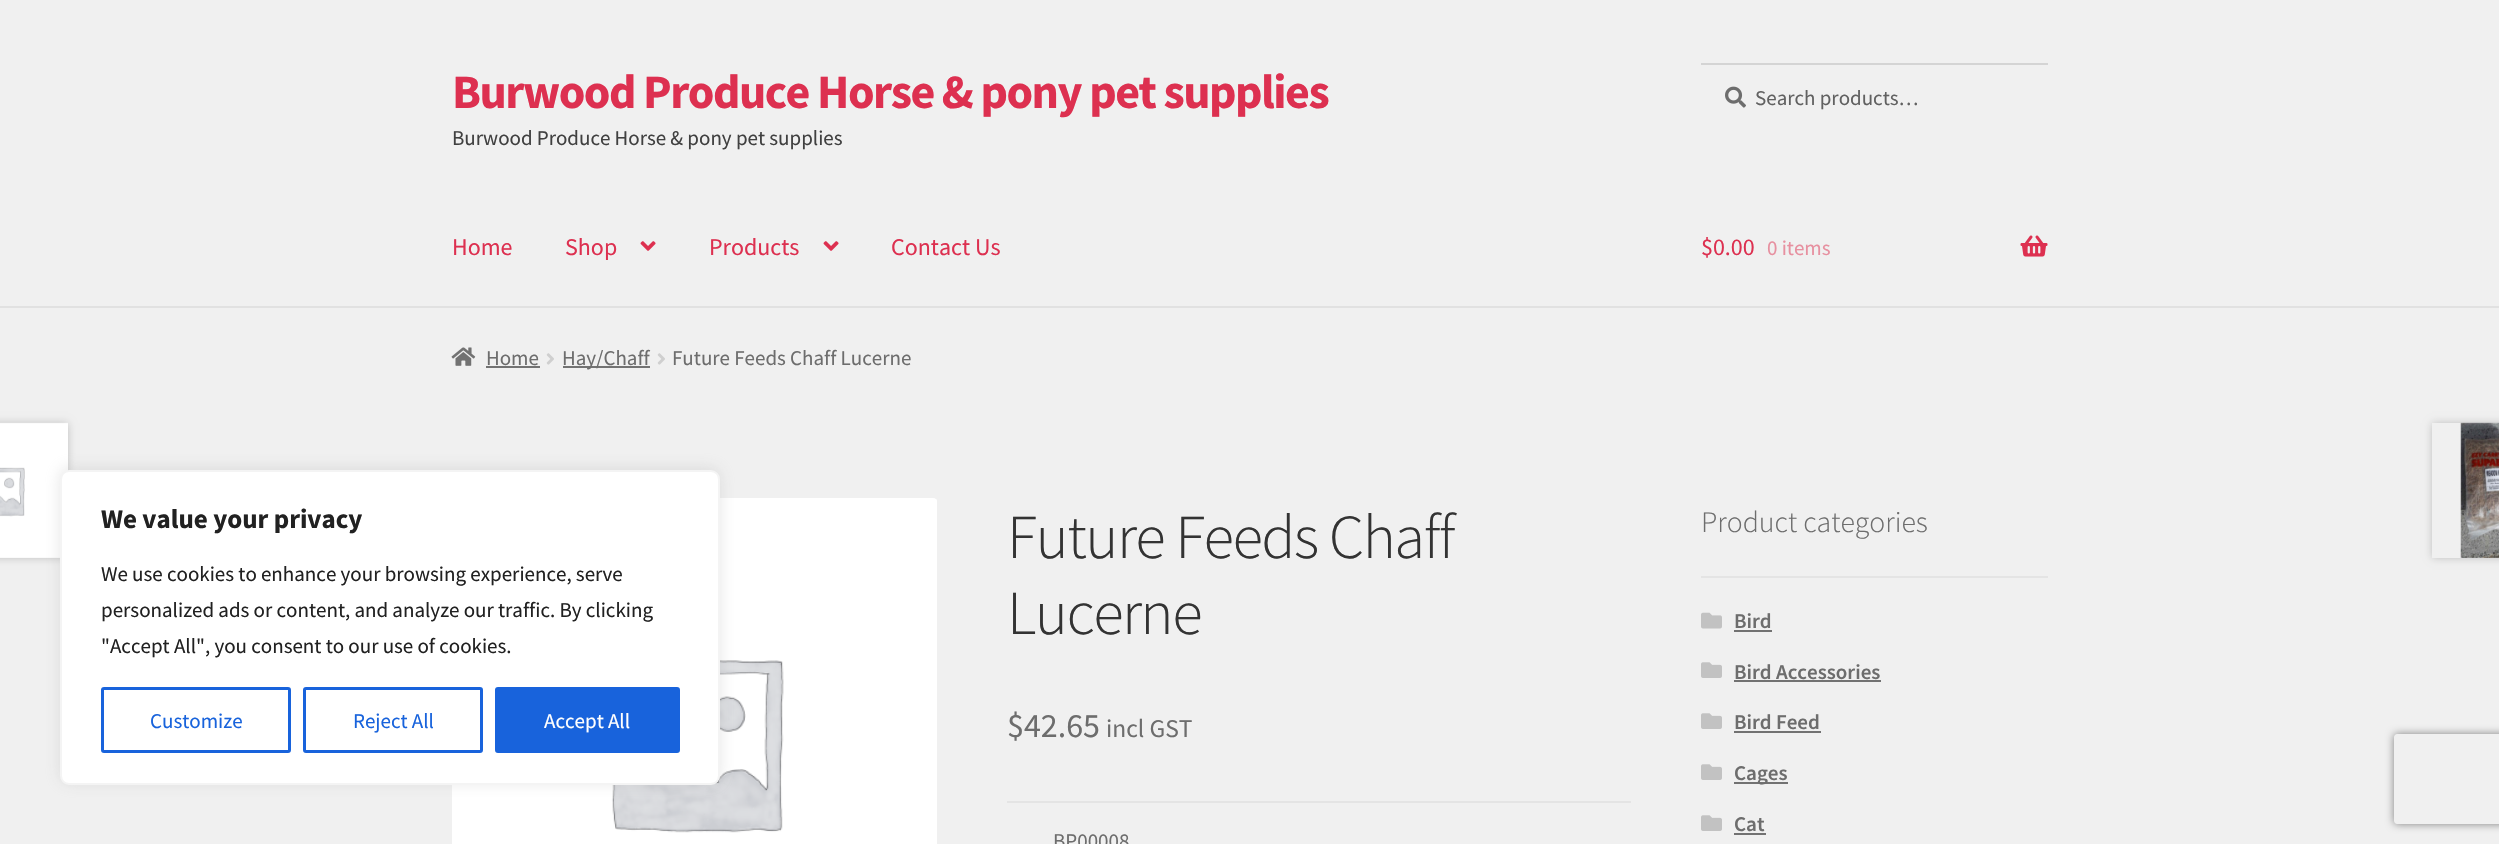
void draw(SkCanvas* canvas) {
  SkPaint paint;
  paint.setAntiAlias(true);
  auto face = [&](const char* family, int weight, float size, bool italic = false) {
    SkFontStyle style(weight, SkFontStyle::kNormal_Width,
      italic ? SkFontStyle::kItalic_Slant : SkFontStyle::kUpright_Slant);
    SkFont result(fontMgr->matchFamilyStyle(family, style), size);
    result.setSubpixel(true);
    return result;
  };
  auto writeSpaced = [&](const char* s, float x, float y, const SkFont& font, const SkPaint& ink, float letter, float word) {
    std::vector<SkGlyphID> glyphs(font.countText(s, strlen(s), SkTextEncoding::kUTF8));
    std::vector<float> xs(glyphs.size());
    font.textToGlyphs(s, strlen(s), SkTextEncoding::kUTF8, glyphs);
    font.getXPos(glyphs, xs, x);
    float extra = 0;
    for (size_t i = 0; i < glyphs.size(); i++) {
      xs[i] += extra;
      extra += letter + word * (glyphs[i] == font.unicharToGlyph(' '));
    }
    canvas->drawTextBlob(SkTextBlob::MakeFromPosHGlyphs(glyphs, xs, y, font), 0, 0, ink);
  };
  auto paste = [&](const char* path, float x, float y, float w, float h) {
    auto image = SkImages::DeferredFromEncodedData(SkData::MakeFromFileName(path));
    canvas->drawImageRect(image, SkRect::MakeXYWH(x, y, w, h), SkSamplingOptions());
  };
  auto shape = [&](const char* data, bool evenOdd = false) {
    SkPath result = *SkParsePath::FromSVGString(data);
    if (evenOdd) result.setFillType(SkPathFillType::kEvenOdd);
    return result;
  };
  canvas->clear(0xfff0f0f0);
  paint.setColor(0x33000000);
  paint.setMaskFilter(SkMaskFilter::MakeBlur(kNormal_SkBlurStyle, 4));
  canvas->drawRect(SkRect::MakeXYWH(-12, 423, 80, 135), paint);
  paint.setMaskFilter(nullptr);
  paste("img/6.png", 0, 422, 68, 136);
  paste("img/8.png", 452, 498, 485, 346);
  paint.setColor(0x4dacabab);
  paint.setMaskFilter(SkMaskFilter::MakeBlur(kNormal_SkBlurStyle, 7.5f));
  canvas->drawRoundRect(SkRect::MakeXYWH(60, 468, 660, 315), 9, 9, paint);
  paint.setMaskFilter(nullptr);
  paint.setColor(0xffffffff);
  canvas->drawRoundRect(SkRect::MakeXYWH(61, 471, 658, 313), 8, 8, paint);
  paint.setStroke(true);
  paint.setStrokeWidth(2);
  paint.setColor(0xfff4f4f4);
  canvas->drawRoundRect(SkRect::MakeXYWH(61, 471, 658, 313), 8, 8, paint);
  paint.setStrokeWidth(3);
  paint.setColor(0xff1863dc);
  canvas->drawRoundRect(SkRect::MakeXYWH(102.5f, 688.5f, 187, 63), 1.5f, 1.5f, paint);
  canvas->drawRoundRect(SkRect::MakeXYWH(304.5f, 688.5f, 177, 63), 1.5f, 1.5f, paint);
  paint.setStroke(false);
  canvas->drawRoundRect(SkRect::MakeXYWH(496.5f, 688.5f, 182, 63), 1.5f, 1.5f, paint);
  paint.setStroke(true);
  canvas->drawRoundRect(SkRect::MakeXYWH(496.5f, 688.5f, 182, 63), 1.5f, 1.5f, paint);
  paint.setStroke(false);
  paint.setColor(0xffe1e1e1);
  canvas->drawRect(SkRect::MakeXYWH(0, 306, 2499, 2), paint);
  paste("img/1.png", 1725, 86, 21, 22);
  paint.setColor(0xffd4d4d4);
  canvas->drawRect(SkRect::MakeXYWH(1701, 63, 347, 2), paint);
  paste("img/2.png", 640, 241, 16, 10);
  paste("img/2.png", 823, 241, 16, 10);
  paste("img/3.png", 2020, 235, 28, 22);
  paste("img/4.png", 451, 347, 25, 19);
  paint.setColor(0xff727272);
  canvas->drawRect(SkRect::MakeXYWH(486, 366, 54, 2), paint);
  paste("img/5.png", 546, 353, 8, 12);
  canvas->drawRect(SkRect::MakeXYWH(563, 366, 87, 2), paint);
  paste("img/5.png", 657, 353, 8, 12);
  canvas->save();
  canvas->clipPath(shape("M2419 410H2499V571H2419ZM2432 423H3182V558H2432Z", true), true);
  paint.setColor(0x33000000);
  paint.setMaskFilter(SkMaskFilter::MakeBlur(kNormal_SkBlurStyle, 4));
  canvas->drawRect(SkRect::MakeXYWH(2432, 423, 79, 135), paint);
  paint.setMaskFilter(nullptr);
  canvas->restore();
  paste("img/7.png", 2460, 422, 39, 136);
  paint.setColor(0xffe4e4e4);
  canvas->drawRect(SkRect::MakeXYWH(1007, 801, 624, 2), paint);
  canvas->drawRect(SkRect::MakeXYWH(1701, 576, 347, 2), paint);
  paste("img/9.png", 1701, 612, 21, 17);
  paint.setColor(0xff727272);
  canvas->drawRect(SkRect::MakeXYWH(1734, 630, 38, 2), paint);
  paste("img/10.png", 1701, 662, 21, 16);
  canvas->drawRect(SkRect::MakeXYWH(1734, 680, 147, 2), paint);
  paste("img/10.png", 1701, 713, 21, 16);
  canvas->drawRect(SkRect::MakeXYWH(1734, 731, 87, 2), paint);
  paste("img/10.png", 1701, 764, 21, 16);
  canvas->drawRect(SkRect::MakeXYWH(1734, 782, 54, 2), paint);
  paste("img/10.png", 1701, 815, 21, 16);
  canvas->drawRect(SkRect::MakeXYWH(1734, 833, 32, 2), paint);
  canvas->save();
  canvas->clipPath(shape("M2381 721H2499V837H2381ZM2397 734H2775C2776.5 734 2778 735.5 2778 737V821C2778 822.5 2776.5 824 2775 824H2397C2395.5 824 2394 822.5 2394 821V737C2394 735.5 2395.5 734 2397 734Z", true), true);
  paint.setColor(0xff808080);
  paint.setMaskFilter(SkMaskFilter::MakeBlur(kNormal_SkBlurStyle, 4));
  canvas->drawRoundRect(SkRect::MakeXYWH(2394, 734, 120, 90), 3, 3, paint);
  paint.setMaskFilter(nullptr);
  canvas->restore();
  auto f0 = face("Source Sans Pro", 700, 27);
  paint.setColor(0xff212121);
  canvas->drawString("We value your privacy", 101, 528, f0, paint);
  auto f1 = face("Source Sans Pro", 400, 21);
  {
    const struct { const char* s; float x, y; } items[] = {
      {"We use cookies to enhance your browsing experience, serve", 101, 581},
      {"personalized ads or content, and analyze our traffic. By clicking", 101, 617},
      {"\"Accept All\", you consent to our use of cookies.", 101, 653},
    };
    for (auto [s, x, y] : items) {
      canvas->drawString(s, x, y, f1, paint);
    }
  }
  paint.setColor(0xff1863dc);
  canvas->drawString("Customize", 150, 728, f1, paint);
  canvas->drawString("Reject All", 353, 728, f1, paint);
  paint.setColor(0xffffffff);
  canvas->drawString("Accept All", 544, 728, f1, paint);
  auto f2 = face("Source Sans Pro", 700, 48);
  paint.setColor(0xffdd3050);
  writeSpaced("Burwood Produce Horse & pony pet supplies", 452, 108, f2, paint, -1.5f, 0);
  paint.setColor(0xff404040);
  canvas->drawString("Burwood Produce Horse & pony pet supplies", 452, 145, f1, paint);
  paint.setColor(0xff616161);
  canvas->drawString("Search products…", 1755, 105, f1, paint);
  auto f3 = face("Source Sans Pro", 400, 24);
  paint.setColor(0xffdd3050);
  {
    const struct { const char* s; float x, y; } items[] = {
      {"Home", 452, 255},
      {"Shop", 565, 255},
      {"Products", 709, 255},
      {"Contact Us", 891, 255},
      {"$0.00", 1701, 255},
    };
    for (auto [s, x, y] : items) {
      canvas->drawString(s, x, y, f3, paint);
    }
  }
  paint.setColor(0xffe790a0);
  canvas->drawString("0 items", 1767, 255, f1, paint);
  paint.setColor(0xff6d6d6d);
  {
    const struct { const char* s; float x, y; } items[] = {
      {"Home", 486, 365},
      {"Hay/Chaff", 562, 365},
      {"Future Feeds Chaff Lucerne", 672, 365},
    };
    for (auto [s, x, y] : items) {
      canvas->drawString(s, x, y, f1, paint);
    }
  }
  auto f4 = face("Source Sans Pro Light", 300, 62.75f);
  paint.setColor(0xff333333);
  writeSpaced("Future Feeds Chaff", 1007, 558, f4, paint, -1.5f, 0);
  writeSpaced("Lucerne", 1007, 634, f4, paint, -1.5f, 0);
  auto f5 = face("Source Sans Pro", 400, 34);
  paint.setColor(0xff6d6d6d);
  canvas->drawString("$42.65", 1007, 737, f5, paint);
  auto f6 = face("Source Sans Pro", 400, 25.5f);
  canvas->drawString("incl GST", 1106, 737, f6, paint);
  canvas->drawString("BP00008", 1053, 848, f1, paint);
  auto f7 = face("Source Sans Pro Light", 300, 29.75f);
  canvas->drawString("Product categories", 1701, 532, f7, paint);
  auto f8 = face("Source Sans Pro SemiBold", 600, 21);
  {
    const struct { const char* s; float x, y; } items[] = {
      {"Bird", 1734, 628},
      {"Bird Accessories", 1734, 679},
      {"Bird Feed", 1734, 729},
      {"Cages", 1734, 780},
      {"Cat", 1734, 831},
    };
    for (auto [s, x, y] : items) {
      canvas->drawString(s, x, y, f8, paint);
    }
  }
}
